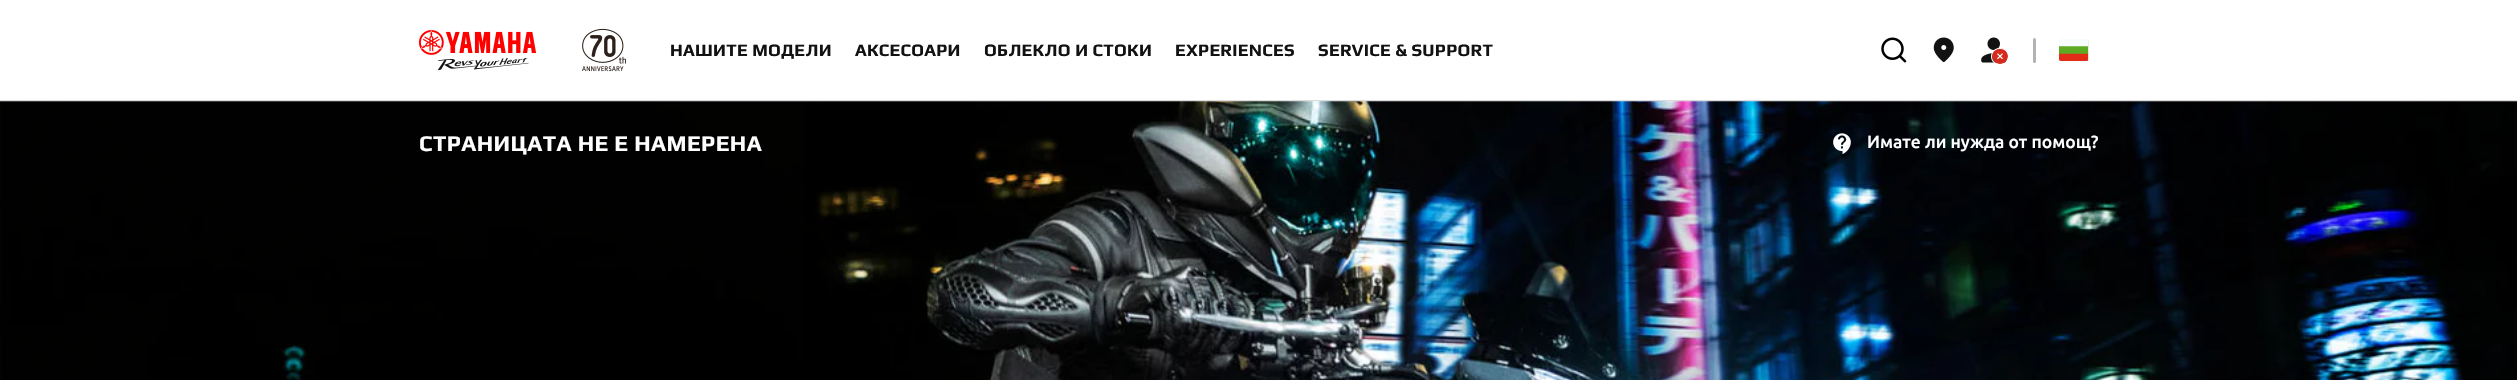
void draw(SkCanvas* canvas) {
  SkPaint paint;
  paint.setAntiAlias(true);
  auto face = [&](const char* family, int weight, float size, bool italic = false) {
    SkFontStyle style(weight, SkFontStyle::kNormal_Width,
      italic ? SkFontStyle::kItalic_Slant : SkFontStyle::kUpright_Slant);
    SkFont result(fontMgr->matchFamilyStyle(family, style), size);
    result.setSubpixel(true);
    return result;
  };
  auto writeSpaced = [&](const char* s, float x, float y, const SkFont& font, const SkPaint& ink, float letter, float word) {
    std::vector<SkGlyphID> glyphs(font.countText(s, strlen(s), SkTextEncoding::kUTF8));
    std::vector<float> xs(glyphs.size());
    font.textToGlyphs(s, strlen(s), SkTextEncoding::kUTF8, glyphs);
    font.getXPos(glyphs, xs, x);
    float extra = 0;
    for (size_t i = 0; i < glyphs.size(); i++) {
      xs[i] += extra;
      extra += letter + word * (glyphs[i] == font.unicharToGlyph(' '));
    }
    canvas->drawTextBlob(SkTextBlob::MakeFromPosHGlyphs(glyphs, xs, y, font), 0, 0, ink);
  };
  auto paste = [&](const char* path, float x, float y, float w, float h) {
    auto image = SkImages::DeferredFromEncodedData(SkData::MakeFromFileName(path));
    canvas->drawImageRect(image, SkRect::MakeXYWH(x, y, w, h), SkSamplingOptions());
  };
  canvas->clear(0xffffffff);
  paint.setColor(0xffdbdbdb);
  canvas->drawRect(SkRect::MakeXYWH(0, 100, 2517, 1), paint);
  paste("img/1.png", 419, 30, 117, 41);
  paste("img/2.png", 582, 28, 44, 44);
  paste("img/3.png", 1881, 37, 26, 26);
  paste("img/4.png", 1933, 37, 21, 26);
  paste("img/5.png", 1981, 37, 27, 27);
  paint.setColor(0xffb3b3b3);
  canvas->drawRoundRect(SkRect::MakeXYWH(2033, 38, 3, 25), 1.5f, 1.5f, paint);
  paste("img/6.png", 2059, 39, 30, 22);
  paste("img/7.png", 0, 101, 2517, 279);
  paste("img/8.png", 1833, 133, 18, 22);
  auto f0 = face("Play", 700, 17.5f);
  paint.setColor(0xff121212);
  {
    const struct { const char* s; float x, y; } items[] = {
      {"НАШИТЕ МОДЕЛИ", 670, 56},
      {"АКСЕСОАРИ", 855, 56},
      {"ОБЛЕКЛО И СТОКИ", 984, 56},
      {"EXPERIENCES", 1175, 56},
      {"SERVICE & SUPPORT", 1318, 56},
    };
    for (auto [s, x, y] : items) {
      writeSpaced(s, x, y, f0, paint, 0.3f, 0);
    }
  }
  auto f1 = face("Play", 700, 22.5f);
  paint.setColor(0xffffffff);
  writeSpaced("СТРАНИЦАТА НЕ Е НАМЕРЕНА", 419, 151, f1, paint, 0.45f, 0);
  auto f2 = face("Ubuntu", 500, 17.5f);
  canvas->drawString("Имате ли нужда от помощ?", 1867, 148, f2, paint);
}
